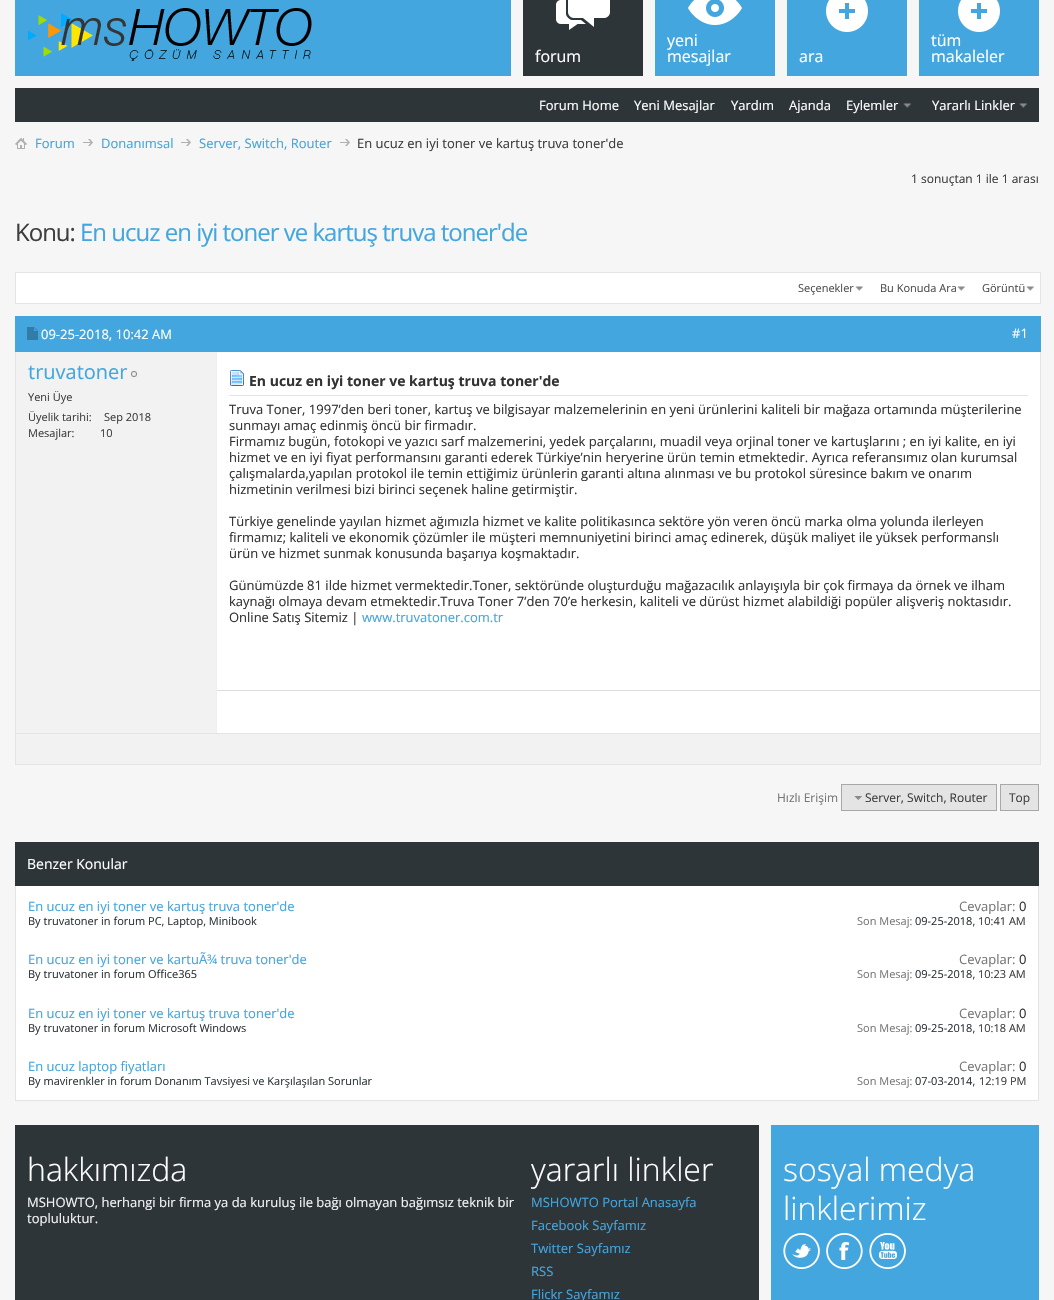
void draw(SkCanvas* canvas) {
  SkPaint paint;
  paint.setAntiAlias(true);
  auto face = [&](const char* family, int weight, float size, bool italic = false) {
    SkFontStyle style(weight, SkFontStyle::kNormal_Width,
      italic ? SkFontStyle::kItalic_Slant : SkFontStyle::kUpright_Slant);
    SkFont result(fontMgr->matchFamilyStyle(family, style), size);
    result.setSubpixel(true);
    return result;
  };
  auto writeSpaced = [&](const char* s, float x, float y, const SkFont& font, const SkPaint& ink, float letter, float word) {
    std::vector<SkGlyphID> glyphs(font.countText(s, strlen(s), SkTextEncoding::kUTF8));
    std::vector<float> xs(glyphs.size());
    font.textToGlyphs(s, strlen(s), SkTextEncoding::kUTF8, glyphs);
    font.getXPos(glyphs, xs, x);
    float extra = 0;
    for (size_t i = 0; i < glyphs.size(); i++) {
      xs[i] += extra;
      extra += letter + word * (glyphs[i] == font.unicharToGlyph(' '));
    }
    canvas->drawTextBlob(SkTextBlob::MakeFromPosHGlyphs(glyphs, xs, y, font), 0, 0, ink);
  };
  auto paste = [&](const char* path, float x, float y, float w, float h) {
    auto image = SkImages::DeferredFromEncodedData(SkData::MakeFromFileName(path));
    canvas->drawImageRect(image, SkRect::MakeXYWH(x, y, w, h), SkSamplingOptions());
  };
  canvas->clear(0xfff6f6f6);
  paint.setColor(0xff43a6df);
  canvas->drawRect(SkRect::MakeXYWH(15, 0, 1024, 76), paint);
  paste("img/1.png", 28, 8, 284, 53);
  paint.setColor(0xfff6f6f6);
  canvas->drawRect(SkRect::MakeXYWH(511, 0, 12, 76), paint);
  paint.setColor(0xff2e3539);
  canvas->drawRect(SkRect::MakeXYWH(523, 0, 120, 76), paint);
  paste("img/2.png", 556, 0, 54, 30);
  paint.setColor(0xfff6f6f6);
  canvas->drawRect(SkRect::MakeXYWH(643, 0, 12, 76), paint);
  paste("img/3.png", 688, 0, 54, 25);
  canvas->drawRect(SkRect::MakeXYWH(775, 0, 12, 76), paint);
  paste("img/4.png", 826, 0, 42, 32);
  canvas->drawRect(SkRect::MakeXYWH(907, 0, 12, 76), paint);
  paste("img/4.png", 958, 0, 42, 32);
  paint.setColor(0xff2e3539);
  canvas->drawRect(SkRect::MakeXYWH(15, 88, 1024, 34), paint);
  paste("img/5.png", 903, 103, 8, 5);
  paste("img/5.png", 1019, 103, 8, 5);
  paste("img/6.png", 15, 138, 12, 11);
  paste("img/7.png", 83, 139, 10, 7);
  paste("img/7.png", 181, 139, 10, 7);
  paste("img/7.png", 340, 139, 10, 7);
  paint.setColor(0xffffffff);
  canvas->drawRect(SkRect::MakeXYWH(15.5f, 272.5f, 1025, 31), paint);
  paint.setStroke(true);
  paint.setStrokeWidth(1);
  paint.setColor(0xffe4e4e4);
  canvas->drawRect(SkRect::MakeXYWH(15.5f, 272.5f, 1025, 31), paint);
  paste("img/8.png", 855, 286, 8, 5);
  paste("img/8.png", 957, 286, 8, 5);
  paste("img/8.png", 1026, 286, 8, 5);
  canvas->drawRect(SkRect::MakeXYWH(15.5f, 316.5f, 1025, 448), paint);
  paint.setStroke(false);
  paint.setColor(0xff43a6df);
  canvas->drawRect(SkRect::MakeXYWH(15, 316, 1026, 36), paint);
  paste("img/9.png", 27, 327, 11, 13);
  paint.setColor(0xfff2f2f2);
  canvas->drawRect(SkRect::MakeXYWH(16, 352, 200, 381), paint);
  paste("img/10.png", 131, 371, 6, 6);
  {
    const struct { float x, y, w, h; SkColor color; } items[] = {
      {217, 352, 823, 381, 0xffffffff},
      {216, 352, 1, 381, 0xffefefef},
      {229, 395, 799, 1, 0xffe4e4e4},
    };
    for (auto [x, y, w, h, color] : items) {
      paint.setColor(color);
      canvas->drawRect(SkRect::MakeXYWH(x, y, w, h), paint);
    }
  }
  paste("img/11.png", 230, 370, 14, 16);
  {
    const struct { float x, y, w, h; SkColor color; } items[] = {
      {217, 690, 823, 1, 0xffdddddd},
      {16, 734, 1024, 30, 0xfff2f2f2},
      {16, 733, 1024, 1, 0xffe4e4e4},
    };
    for (auto [x, y, w, h, color] : items) {
      paint.setColor(color);
      canvas->drawRect(SkRect::MakeXYWH(x, y, w, h), paint);
    }
  }
  canvas->drawRect(SkRect::MakeXYWH(841.5f, 784.5f, 155, 26), paint);
  paint.setStroke(true);
  paint.setColor(0xffa8a8a8);
  canvas->drawRect(SkRect::MakeXYWH(841.5f, 784.5f, 155, 26), paint);
  paste("img/12.png", 854, 796, 8, 4);
  paint.setStroke(false);
  paint.setColor(0xffe4e4e4);
  canvas->drawRect(SkRect::MakeXYWH(1000.5f, 784.5f, 38, 26), paint);
  paint.setStroke(true);
  paint.setColor(0xffa8a8a8);
  canvas->drawRect(SkRect::MakeXYWH(1000.5f, 784.5f, 38, 26), paint);
  paint.setStroke(false);
  {
    const struct { float x, y, w, h; SkColor color; } items[] = {
      {15, 842, 1024, 44, 0xff2e3539},
      {16, 886, 1022, 214, 0xffffffff},
      {1038, 886, 1, 215, 0xffe4e4e4},
      {15, 1100, 1024, 1, 0xffe4e4e4},
      {15, 886, 1, 215, 0xffe4e4e4},
      {15, 1125, 744, 175, 0xff2e3539},
      {771, 1125, 268, 175, 0xff43a6df},
    };
    for (auto [x, y, w, h, color] : items) {
      paint.setColor(color);
      canvas->drawRect(SkRect::MakeXYWH(x, y, w, h), paint);
    }
  }
  paste("img/13.png", 783, 1233, 37, 36);
  paste("img/14.png", 826, 1233, 37, 36);
  paste("img/15.png", 869, 1233, 37, 36);
  auto f0 = face("Open Sans", 400, 16);
  paint.setColor(0xffffffff);
  {
    const struct { const char* s; float x, y; } items[] = {
      {"forum", 535, 62},
      {"yeni", 667, 46},
      {"mesajlar", 667, 62},
      {"ara", 799, 62},
      {"tüm", 931, 46},
      {"makaleler", 931, 62},
    };
    for (auto [s, x, y] : items) {
      canvas->drawString(s, x, y, f0, paint);
    }
  }
  auto f1 = face("Open Sans", 400, 13);
  {
    const struct { const char* s; float x, y; } items[] = {
      {"Forum Home", 539, 110},
      {"Yeni Mesajlar", 634, 110},
      {"Yardım", 731, 110},
      {"Ajanda", 789, 110},
      {"Eylemler", 846, 110},
      {"Yararlı Linkler", 932, 110},
    };
    for (auto [s, x, y] : items) {
      canvas->drawString(s, x, y, f1, paint);
    }
  }
  paint.setColor(0xff43a6df);
  {
    const struct { const char* s; float x, y; } items[] = {
      {"Forum", 35, 148},
      {"Donanımsal", 101, 148},
      {"Server, Switch, Router", 199, 148},
    };
    for (auto [s, x, y] : items) {
      canvas->drawString(s, x, y, f1, paint);
    }
  }
  paint.setColor(0xff3e3e3e);
  canvas->drawString("En ucuz en iyi toner ve kartuş truva toner'de", 357, 148, f1, paint);
  auto f2 = face("Open Sans", 400, 12);
  canvas->drawString("1 sonuçtan 1 ile 1 arası", 911, 183, f2, paint);
  auto f3 = face("Open Sans", 400, 24);
  writeSpaced("Konu:", 15, 241, f3, paint, -1, 0);
  paint.setColor(0xff43a6df);
  writeSpaced("En ucuz en iyi toner ve kartuş truva toner'de", 80, 241, f3, paint, -1, 0);
  auto f4 = face("Open Sans", 400, 11);
  paint.setColor(0xff4e4e4e);
  {
    const struct { const char* s; float x, y; } items[] = {
      {"Seçenekler", 798, 292},
      {"Bu Konuda Ara", 880, 292},
      {"Görüntü", 982, 292},
    };
    for (auto [s, x, y] : items) {
      canvas->drawString(s, x, y, f4, paint);
    }
  }
  paint.setColor(0xffffffff);
  canvas->drawString("09-25-2018, 10:42 AM", 41, 339, f1, paint);
  canvas->drawString("#1", 1012, 338, f1, paint);
  auto f5 = face("Open Sans", 400, 20);
  paint.setColor(0xff43a6df);
  canvas->drawString("truvatoner", 28, 379, f5, paint);
  paint.setColor(0xff3e3e3e);
  {
    const struct { const char* s; float x, y; } items[] = {
      {"Yeni Üye", 28, 401},
      {"Üyelik tarihi:", 28, 421},
      {"Sep 2018", 104, 421},
      {"Mesajlar:", 28, 437},
      {"10", 100, 437},
    };
    for (auto [s, x, y] : items) {
      canvas->drawString(s, x, y, f4, paint);
    }
  }
  auto f6 = face("Open Sans", 700, 14);
  paint.setColor(0xff333333);
  canvas->drawString("En ucuz en iyi toner ve kartuş truva toner'de", 249, 386, f6, paint);
  {
    const struct { const char* s; float x, y; } items[] = {
      {"Truva Toner, 1997’den beri toner, kartuş ve bilgisayar malzemelerinin en yeni ürünlerini kaliteli bir mağaza ortamında müşterilerine", 229, 414},
      {"sunmayı amaç edinmiş öncü bir firmadır.", 229, 430},
      {"Firmamız bugün, fotokopi ve yazıcı sarf malzemerini, yedek parçalarını, muadil veya orjinal toner ve kartuşlarını ; en iyi kalite, en iyi", 229, 446},
      {"hizmet ve en iyi fiyat performansını garanti ederek Türkiye’nin heryerine ürün temin etmektedir. Ayrıca referansımız olan kurumsal", 229, 462},
      {"çalışmalarda,yapılan protokol ile temin ettiğimiz ürünlerin garanti altına alınması ve bu protokol süresince bakım ve onarım", 229, 478},
      {"hizmetinin verilmesi bizi birinci seçenek haline getirmiştir.", 229, 494},
      {"Türkiye genelinde yayılan hizmet ağımızla hizmet ve kalite politikasınca sektöre yön veren öncü marka olma yolunda ilerleyen", 229, 526},
      {"firmamız; kaliteli ve ekonomik çözümler ile müşteri memnuniyetini birinci amaç edinerek, düşük maliyet ile yüksek performanslı", 229, 542},
      {"ürün ve hizmet sunmak konusunda başarıya koşmaktadır.", 229, 558},
      {"Günümüzde 81 ilde hizmet vermektedir.Toner, sektöründe oluşturduğu mağazacılık anlayışıyla bir çok firmaya da örnek ve ilham", 229, 590},
      {"kaynağı olmaya devam etmektedir.Truva Toner 7’den 70’e herkesin, kaliteli ve dürüst hizmet alabildiği popüler alişveriş noktasıdır.", 229, 606},
      {"Online Satış Sitemiz |", 229, 622},
    };
    for (auto [s, x, y] : items) {
      canvas->drawString(s, x, y, f1, paint);
    }
  }
  paint.setColor(0xff43a6df);
  canvas->drawString("www.truvatoner.com.tr", 362, 622, f1, paint);
  paint.setColor(0xff777777);
  canvas->drawString("Hızlı Erişim", 777, 802, f2, paint);
  paint.setColor(0xff3e3e3e);
  canvas->drawString("Server, Switch, Router", 865, 802, f2, paint);
  canvas->drawString("Top", 1009, 802, f2, paint);
  auto f7 = face("Open Sans", 400, 14);
  paint.setColor(0xffffffff);
  canvas->drawString("Benzer Konular", 27, 869, f7, paint);
  paint.setColor(0xff43a6df);
  canvas->drawString("En ucuz en iyi toner ve kartuş truva toner'de", 28, 911, f1, paint);
  paint.setColor(0xff2e3539);
  canvas->drawString("By truvatoner in forum PC, Laptop, Minibook", 28, 925, f4, paint);
  paint.setColor(0xff777777);
  canvas->drawString("Cevaplar:", 959, 911, f1, paint);
  paint.setColor(0xff2e3539);
  canvas->drawString("0", 1019, 911, f1, paint);
  paint.setColor(0xff777777);
  canvas->drawString("Son Mesaj:", 857, 925, f4, paint);
  paint.setColor(0xff2e3539);
  canvas->drawString("09-25-2018,", 915, 925, f4, paint);
  paint.setColor(0xff3e3e3e);
  canvas->drawString("10:41 AM", 978, 925, f4, paint);
  paint.setColor(0xff43a6df);
  canvas->drawString("En ucuz en iyi toner ve kartuÃ¾ truva toner'de", 28, 964, f1, paint);
  paint.setColor(0xff2e3539);
  canvas->drawString("By truvatoner in forum Office365", 28, 978, f4, paint);
  paint.setColor(0xff777777);
  canvas->drawString("Cevaplar:", 959, 964, f1, paint);
  paint.setColor(0xff2e3539);
  canvas->drawString("0", 1019, 964, f1, paint);
  paint.setColor(0xff777777);
  canvas->drawString("Son Mesaj:", 857, 978, f4, paint);
  paint.setColor(0xff2e3539);
  canvas->drawString("09-25-2018,", 915, 978, f4, paint);
  paint.setColor(0xff3e3e3e);
  canvas->drawString("10:23 AM", 978, 978, f4, paint);
  paint.setColor(0xff43a6df);
  canvas->drawString("En ucuz en iyi toner ve kartuş truva toner'de", 28, 1018, f1, paint);
  paint.setColor(0xff2e3539);
  canvas->drawString("By truvatoner in forum Microsoft Windows", 28, 1032, f4, paint);
  paint.setColor(0xff777777);
  canvas->drawString("Cevaplar:", 959, 1018, f1, paint);
  paint.setColor(0xff2e3539);
  canvas->drawString("0", 1019, 1018, f1, paint);
  paint.setColor(0xff777777);
  canvas->drawString("Son Mesaj:", 857, 1032, f4, paint);
  paint.setColor(0xff2e3539);
  canvas->drawString("09-25-2018,", 915, 1032, f4, paint);
  paint.setColor(0xff3e3e3e);
  canvas->drawString("10:18 AM", 978, 1032, f4, paint);
  paint.setColor(0xff43a6df);
  canvas->drawString("En ucuz laptop fiyatları", 28, 1071, f1, paint);
  paint.setColor(0xff2e3539);
  canvas->drawString("By mavirenkler in forum Donanım Tavsiyesi ve Karşılaşılan Sorunlar", 28, 1085, f4, paint);
  paint.setColor(0xff777777);
  canvas->drawString("Cevaplar:", 959, 1071, f1, paint);
  paint.setColor(0xff2e3539);
  canvas->drawString("0", 1019, 1071, f1, paint);
  paint.setColor(0xff777777);
  canvas->drawString("Son Mesaj:", 857, 1085, f4, paint);
  paint.setColor(0xff2e3539);
  canvas->drawString("07-03-2014,", 915, 1085, f4, paint);
  paint.setColor(0xff3e3e3e);
  canvas->drawString("12:19 PM", 979, 1085, f4, paint);
  auto f8 = face("Open Sans", 300, 32);
  paint.setColor(0xffffffff);
  canvas->drawString("hakkımızda", 27, 1181, f8, paint);
  paint.setColor(0xfff2f2f2);
  canvas->drawString("MSHOWTO, herhangi bir firma ya da kuruluş ile bağı olmayan bağımsız teknik bir", 27, 1207, f1, paint);
  canvas->drawString("topluluktur.", 27, 1223, f1, paint);
  paint.setColor(0xffffffff);
  canvas->drawString("yararlı linkler", 531, 1181, f8, paint);
  paint.setColor(0xff43a6df);
  {
    const struct { const char* s; float x, y; } items[] = {
      {"MSHOWTO Portal Anasayfa", 531, 1207},
      {"Facebook Sayfamız", 531, 1230},
      {"Twitter Sayfamız", 531, 1253},
      {"RSS", 531, 1276},
      {"Flickr Sayfamız", 531, 1299},
    };
    for (auto [s, x, y] : items) {
      canvas->drawString(s, x, y, f1, paint);
    }
  }
  paint.setColor(0xffffffff);
  canvas->drawString("sosyal medya", 783, 1181, f8, paint);
  canvas->drawString("linklerimiz", 783, 1220, f8, paint);
}
